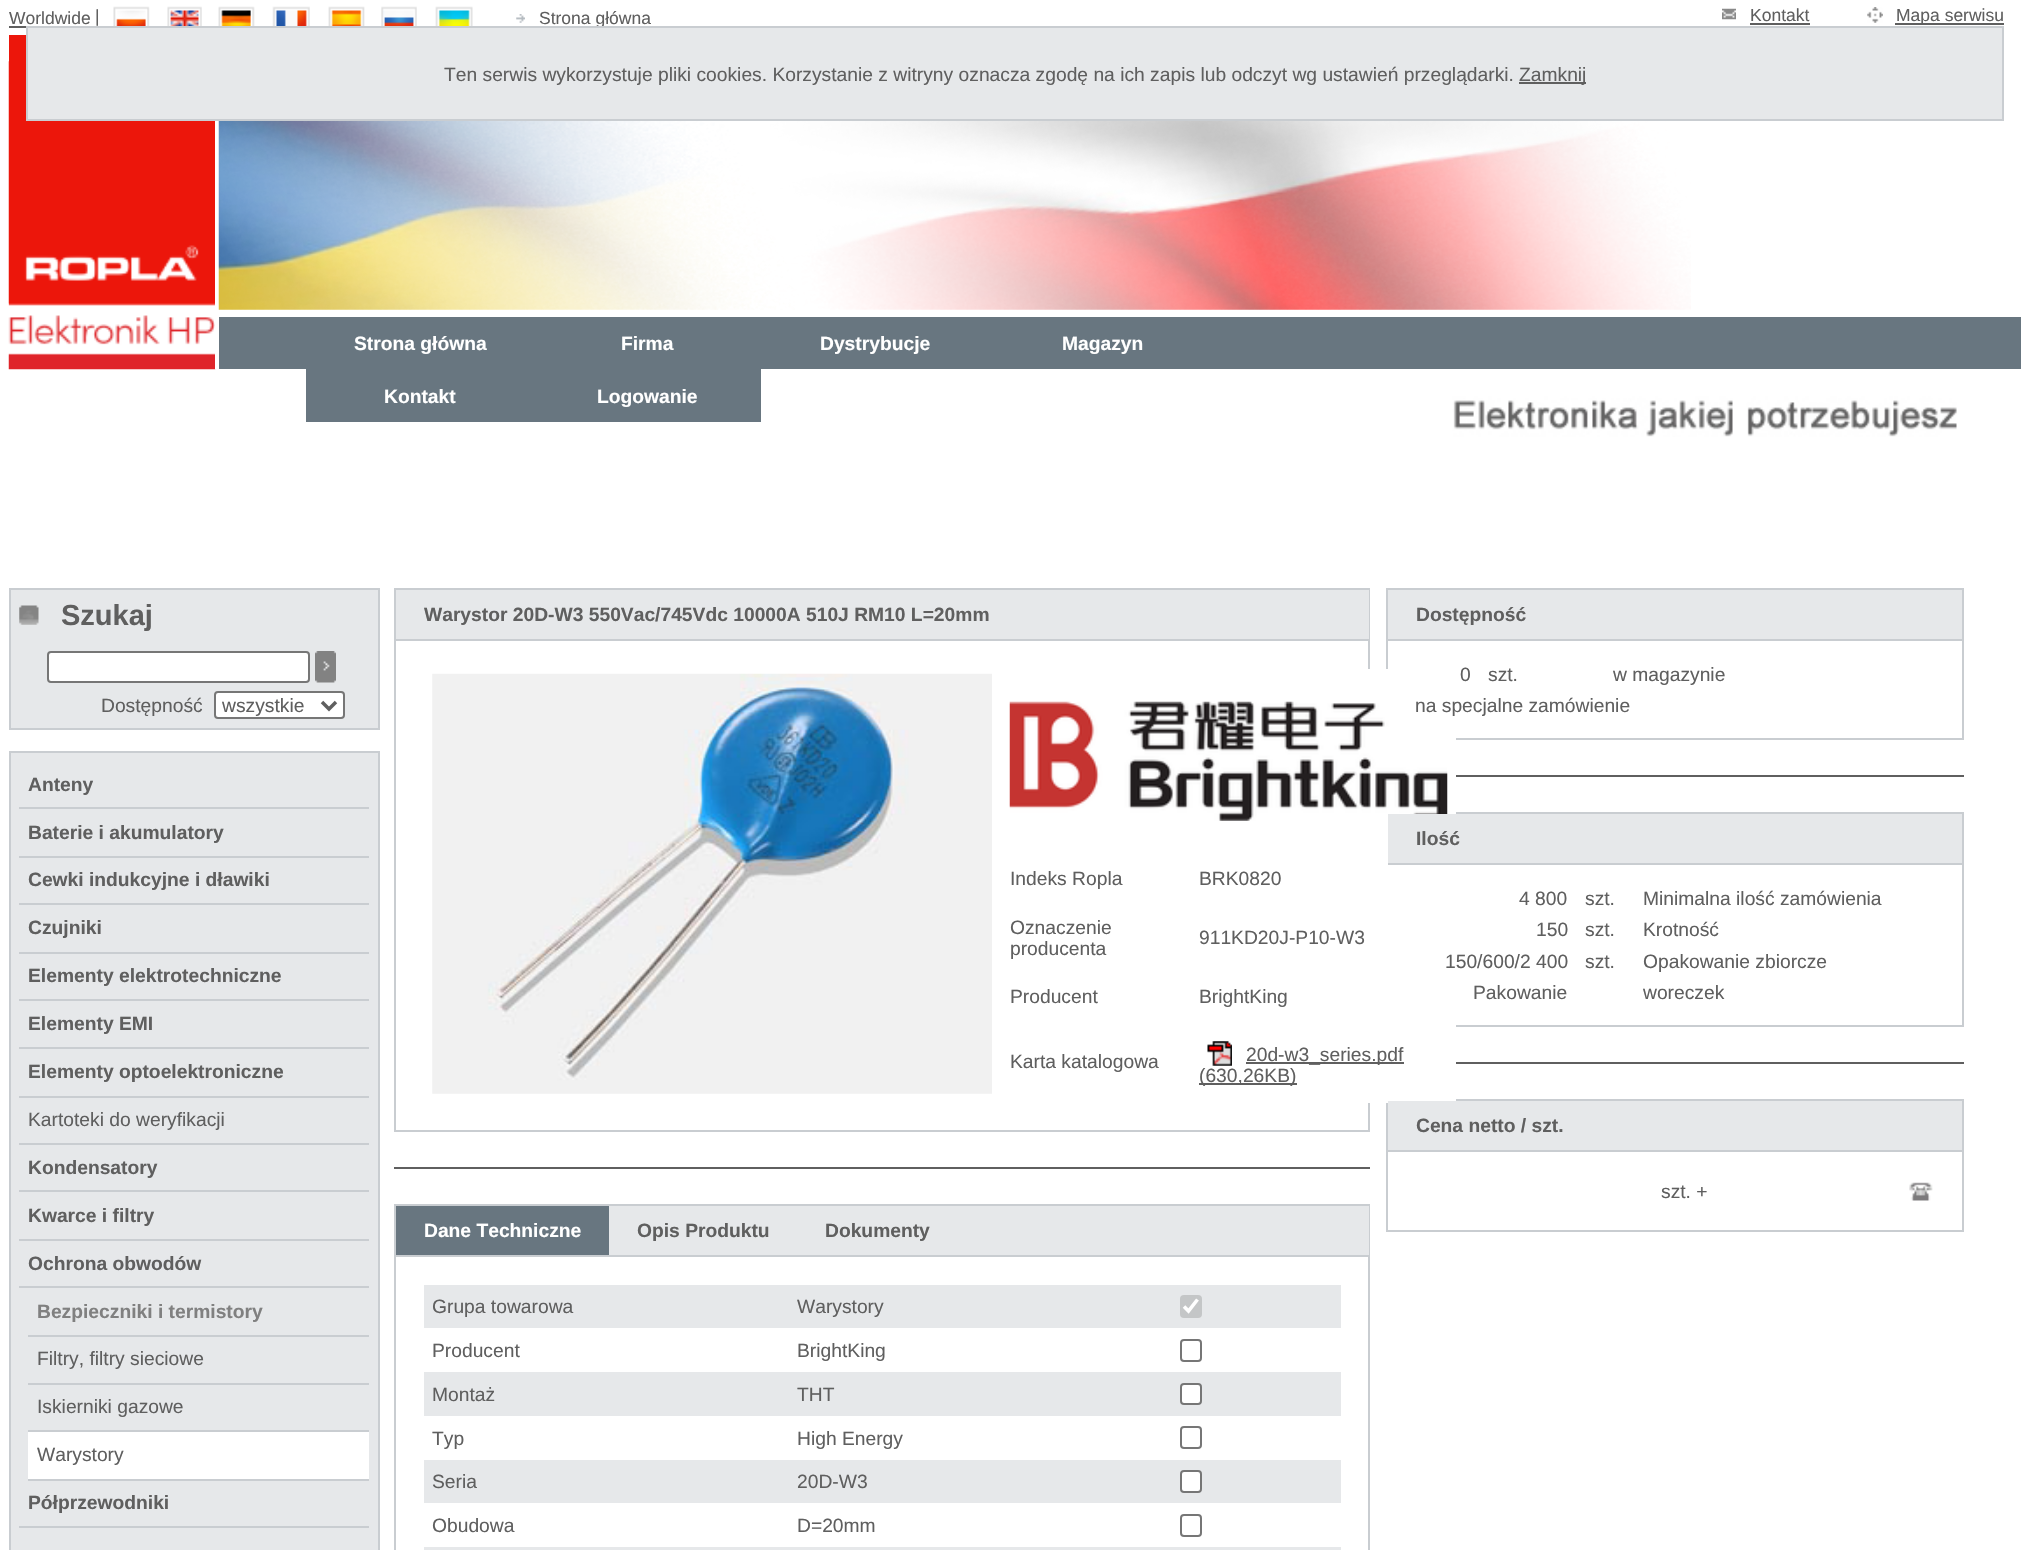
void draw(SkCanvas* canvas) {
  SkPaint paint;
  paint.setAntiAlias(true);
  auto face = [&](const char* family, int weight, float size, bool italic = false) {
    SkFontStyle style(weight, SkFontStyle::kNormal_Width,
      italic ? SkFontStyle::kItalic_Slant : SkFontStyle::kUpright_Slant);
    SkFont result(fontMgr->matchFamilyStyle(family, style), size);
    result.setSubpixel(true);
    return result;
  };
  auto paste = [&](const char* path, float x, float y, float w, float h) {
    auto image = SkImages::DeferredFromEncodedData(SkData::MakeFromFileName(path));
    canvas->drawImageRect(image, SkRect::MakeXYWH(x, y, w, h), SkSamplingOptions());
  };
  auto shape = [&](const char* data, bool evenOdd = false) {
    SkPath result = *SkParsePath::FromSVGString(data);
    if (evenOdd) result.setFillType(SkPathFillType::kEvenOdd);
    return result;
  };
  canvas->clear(0xffffffff);
  paint.setColor(0xff5f5f5f);
  canvas->drawRect(SkRect::MakeXYWH(9, 26, 17, 2), paint);
  paste("img/1.png", 113, 6, 37, 20);
  paste("img/2.png", 167, 6, 35, 20);
  paste("img/3.png", 218, 6, 37, 20);
  paste("img/4.png", 272, 6, 38, 20);
  paste("img/5.png", 328, 6, 37, 20);
  paste("img/6.png", 381, 6, 36, 20);
  paste("img/7.png", 435, 6, 38, 20);
  paste("img/8.png", 516, 14, 9, 9);
  paste("img/9.png", 1722, 8, 14, 12);
  canvas->drawRect(SkRect::MakeXYWH(1750, 23, 60, 2), paint);
  paste("img/10.png", 1867, 7, 16, 16);
  canvas->drawRect(SkRect::MakeXYWH(1895, 23, 109, 2), paint);
  paint.setColor(0xffec160b);
  canvas->drawRect(SkRect::MakeXYWH(9, 35, 206, 322), paint);
  paste("img/11.png", 8, 61, 208, 309);
  paint.setColor(0xffffffff);
  canvas->drawRect(SkRect::MakeXYWH(215, 61, 1, 245), paint);
  paste("img/12.png", 218, 121, 1473, 189);
  paste("img/13.png", 1396, 369, 561, 68);
  {
    const struct { float x, y, w, h; SkColor color; } items[] = {
      {219, 317, 1802, 52, 0xff687680},
      {215, 323, 1, 46, 0xffffffff},
      {306, 369, 455, 53, 0xff687680},
    };
    for (auto [x, y, w, h, color] : items) {
      paint.setColor(color);
      canvas->drawRect(SkRect::MakeXYWH(x, y, w, h), paint);
    }
  }
  paint.setColor(0xffe6e8ea);
  canvas->drawRect(SkRect::MakeXYWH(10, 589, 369, 140), paint);
  paint.setStroke(true);
  paint.setStrokeWidth(2);
  paint.setColor(0xffc9cdd1);
  canvas->drawRect(SkRect::MakeXYWH(10, 589, 369, 140), paint);
  paste("img/14.png", 19, 605, 20, 20);
  paint.setStroke(false);
  paint.setColor(0xffffffff);
  canvas->drawRoundRect(SkRect::MakeXYWH(48, 652, 261, 30), 3, 3, paint);
  paint.setStroke(true);
  paint.setColor(0xff767676);
  canvas->drawRoundRect(SkRect::MakeXYWH(48, 652, 261, 30), 3, 3, paint);
  paste("img/15.png", 315, 651, 21, 32);
  paint.setStroke(false);
  paint.setColor(0xffffffff);
  canvas->drawRoundRect(SkRect::MakeXYWH(215, 692, 129, 26), 3, 3, paint);
  paint.setStroke(true);
  paint.setColor(0xff767676);
  canvas->drawRoundRect(SkRect::MakeXYWH(215, 692, 129, 26), 3, 3, paint);
  paint.setStrokeWidth(3.5f);
  paint.setColor(0xff5f5f5f);
  canvas->drawPath(shape("M322 702L329 709L336 702"), paint);
  paint.setStroke(false);
  paint.setColor(0xffe6e8ea);
  canvas->drawRect(SkRect::MakeXYWH(10, 752, 369, 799), paint);
  paint.setStroke(true);
  paint.setStrokeWidth(2);
  paint.setColor(0xffc9cdd1);
  canvas->drawRect(SkRect::MakeXYWH(10, 752, 369, 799), paint);
  paint.setStroke(false);
  {
    const struct { float x, y, w, h; SkColor color; } items[] = {
      {19, 807, 350, 2, 0xffc9cdd1},
      {19, 856, 350, 2, 0xffc9cdd1},
      {19, 903, 350, 2, 0xffc9cdd1},
      {19, 952, 350, 2, 0xffc9cdd1},
      {19, 999, 350, 2, 0xffc9cdd1},
      {19, 1047, 350, 2, 0xffc9cdd1},
      {19, 1096, 350, 2, 0xffc9cdd1},
      {19, 1143, 350, 2, 0xffc9cdd1},
      {19, 1190, 350, 2, 0xffc9cdd1},
      {19, 1239, 350, 2, 0xffc9cdd1},
      {19, 1286, 350, 2, 0xffc9cdd1},
      {28, 1335, 341, 2, 0xffc9cdd1},
      {28, 1383, 341, 2, 0xffc9cdd1},
      {28, 1430, 341, 2, 0xffc9cdd1},
      {28, 1432, 341, 47, 0xffffffff},
      {28, 1479, 341, 2, 0xffc9cdd1},
      {19, 1526, 350, 2, 0xffc9cdd1},
    };
    for (auto [x, y, w, h, color] : items) {
      paint.setColor(color);
      canvas->drawRect(SkRect::MakeXYWH(x, y, w, h), paint);
    }
  }
  paint.setStroke(true);
  canvas->drawRect(SkRect::MakeXYWH(395, 589, 974, 542), paint);
  paint.setStroke(false);
  paint.setColor(0xffe6e8ea);
  canvas->drawRect(SkRect::MakeXYWH(396, 590, 973, 49), paint);
  paint.setColor(0xffc9cdd1);
  canvas->drawRect(SkRect::MakeXYWH(396, 639, 973, 2), paint);
  paint.setStroke(true);
  canvas->drawRect(SkRect::MakeXYWH(1387, 589, 576, 150), paint);
  canvas->drawRect(SkRect::MakeXYWH(1387, 813, 576, 213), paint);
  canvas->drawRect(SkRect::MakeXYWH(1387, 1100, 576, 131), paint);
  paint.setStroke(false);
  paint.setColor(0xffffffff);
  canvas->drawRect(SkRect::MakeXYWH(1368, 669, 88, 434), paint);
  paste("img/16.png", 432, 673, 560, 421);
  paste("img/17.png", 1009, 701, 439, 120);
  paste("img/18.png", 1207, 1041, 25, 25);
  {
    const struct { float x, y, w, h; SkColor color; } items[] = {
      {1246, 1062, 158, 2, 0xff5f5f5f},
      {1199, 1083, 98, 2, 0xff5f5f5f},
      {394, 1167, 976, 2, 0xff5f5f5f},
    };
    for (auto [x, y, w, h, color] : items) {
      paint.setColor(color);
      canvas->drawRect(SkRect::MakeXYWH(x, y, w, h), paint);
    }
  }
  paint.setStroke(true);
  paint.setColor(0xffc9cdd1);
  canvas->drawRect(SkRect::MakeXYWH(395, 1205, 974, 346), paint);
  paint.setStroke(false);
  {
    const struct { float x, y, w, h; SkColor color; } items[] = {
      {609, 1206, 760, 49, 0xffe6e8ea},
      {396, 1255, 973, 2, 0xffc9cdd1},
      {396, 1206, 213, 49, 0xff687680},
      {424, 1285, 917, 43, 0xffe6e8ea},
    };
    for (auto [x, y, w, h, color] : items) {
      paint.setColor(color);
      canvas->drawRect(SkRect::MakeXYWH(x, y, w, h), paint);
    }
  }
  paint.setColor(0xffc4c6c7);
  canvas->drawRoundRect(SkRect::MakeXYWH(1180, 1295, 22, 23), 4, 4, paint);
  paint.setStroke(true);
  paint.setStrokeWidth(3.6f);
  paint.setColor(0xffffffff);
  canvas->drawPath(shape("M1184 1306.5L1188.5 1311L1197.5 1299.5"), paint);
  paint.setStrokeWidth(2);
  paint.setColor(0xff767676);
  canvas->drawRoundRect(SkRect::MakeXYWH(1181, 1340, 20, 21), 3, 3, paint);
  paint.setStroke(false);
  paint.setColor(0xffe6e8ea);
  canvas->drawRect(SkRect::MakeXYWH(424, 1372, 917, 44), paint);
  paint.setColor(0xffffffff);
  canvas->drawRoundRect(SkRect::MakeXYWH(1181, 1384, 20, 20), 3, 3, paint);
  paint.setStroke(true);
  paint.setColor(0xff767676);
  canvas->drawRoundRect(SkRect::MakeXYWH(1181, 1384, 20, 20), 3, 3, paint);
  canvas->drawRoundRect(SkRect::MakeXYWH(1181, 1427, 20, 21), 3, 3, paint);
  paint.setStroke(false);
  paint.setColor(0xffe6e8ea);
  canvas->drawRect(SkRect::MakeXYWH(424, 1460, 917, 43), paint);
  paint.setColor(0xffffffff);
  canvas->drawRoundRect(SkRect::MakeXYWH(1181, 1471, 20, 21), 3, 3, paint);
  paint.setStroke(true);
  paint.setColor(0xff767676);
  canvas->drawRoundRect(SkRect::MakeXYWH(1181, 1471, 20, 21), 3, 3, paint);
  canvas->drawRoundRect(SkRect::MakeXYWH(1181, 1515, 20, 21), 3, 3, paint);
  paint.setStroke(false);
  {
    const struct { float x, y, w, h; SkColor color; } items[] = {
      {424, 1547, 917, 3, 0xffe6e8ea},
      {1388, 590, 574, 49, 0xffe6e8ea},
      {1388, 639, 574, 2, 0xffc9cdd1},
      {1456, 775, 508, 2, 0xff5f5f5f},
      {1388, 814, 574, 49, 0xffe6e8ea},
      {1388, 863, 574, 2, 0xffc9cdd1},
      {1456, 1062, 508, 2, 0xff5f5f5f},
      {1388, 1101, 574, 49, 0xffe6e8ea},
      {1388, 1150, 574, 2, 0xffc9cdd1},
    };
    for (auto [x, y, w, h, color] : items) {
      paint.setColor(color);
      canvas->drawRect(SkRect::MakeXYWH(x, y, w, h), paint);
    }
  }
  paste("img/19.png", 1909, 1182, 24, 19);
  auto f0 = face("Liberation Sans", 400, 17.5f);
  paint.setColor(0xff5f5f5f);
  {
    const struct { const char* s; float x, y; } items[] = {
      {"Worldwide", 9, 24},
      {"|", 95, 22},
      {"Strona główna", 539, 24},
      {"Kontakt", 1750, 21},
      {"Mapa serwisu", 1896, 21},
    };
    for (auto [s, x, y] : items) {
      canvas->drawString(s, x, y, f0, paint);
    }
  }
  auto f1 = face("Liberation Sans", 700, 19.25f);
  paint.setColor(0xffffffff);
  {
    const struct { const char* s; float x, y; } items[] = {
      {"Strona główna", 354, 350},
      {"Firma", 621, 350},
      {"Dystrybucje", 820, 350},
      {"Magazyn", 1062, 350},
      {"Kontakt", 384, 403},
      {"Logowanie", 597, 403},
    };
    for (auto [s, x, y] : items) {
      canvas->drawString(s, x, y, f1, paint);
    }
  }
  auto f2 = face("Liberation Sans", 700, 29);
  paint.setColor(0xff5f5f5f);
  canvas->drawString("Szukaj", 61, 625, f2, paint);
  auto f3 = face("Liberation Sans", 400, 19.25f);
  canvas->drawString("Dostępność", 101, 712, f3, paint);
  canvas->drawString("wszystkie", 222, 712, f3, paint);
  {
    const struct { const char* s; float x, y; } items[] = {
      {"Anteny", 28, 791},
      {"Baterie i akumulatory", 28, 839},
      {"Cewki indukcyjne i dławiki", 28, 886},
      {"Czujniki", 28, 934},
      {"Elementy elektrotechniczne", 28, 982},
      {"Elementy EMI", 28, 1030},
      {"Elementy optoelektroniczne", 28, 1078},
    };
    for (auto [s, x, y] : items) {
      canvas->drawString(s, x, y, f1, paint);
    }
  }
  canvas->drawString("Kartoteki do weryfikacji", 28, 1126, f3, paint);
  {
    const struct { const char* s; float x, y; } items[] = {
      {"Kondensatory", 28, 1174},
      {"Kwarce i filtry", 28, 1222},
      {"Ochrona obwodów", 28, 1270},
    };
    for (auto [s, x, y] : items) {
      canvas->drawString(s, x, y, f1, paint);
    }
  }
  paint.setColor(0xff808080);
  canvas->drawString("Bezpieczniki i termistory", 37, 1318, f1, paint);
  paint.setColor(0xff5f5f5f);
  {
    const struct { const char* s; float x, y; } items[] = {
      {"Filtry, filtry sieciowe", 37, 1365},
      {"Iskierniki gazowe", 37, 1413},
      {"Warystory", 37, 1461},
    };
    for (auto [s, x, y] : items) {
      canvas->drawString(s, x, y, f3, paint);
    }
  }
  canvas->drawString("Półprzewodniki", 28, 1509, f1, paint);
  canvas->drawString("Warystor 20D-W3 550Vac/745Vdc 10000A 510J RM10 L=20mm", 424, 621, f1, paint);
  {
    const struct { const char* s; float x, y; } items[] = {
      {"Indeks Ropla", 1010, 885},
      {"BRK0820", 1199, 885},
      {"Oznaczenie", 1010, 934},
      {"producenta", 1010, 955},
      {"911KD20J-P10-W3", 1199, 944},
      {"Producent", 1010, 1003},
      {"BrightKing", 1199, 1003},
      {"Karta katalogowa", 1010, 1068},
      {"20d-w3_series.pdf", 1246, 1061},
      {"(630,26KB)", 1199, 1082},
    };
    for (auto [s, x, y] : items) {
      canvas->drawString(s, x, y, f3, paint);
    }
  }
  paint.setColor(0xffffffff);
  canvas->drawString("Dane Techniczne", 424, 1237, f1, paint);
  paint.setColor(0xff5f5f5f);
  canvas->drawString("Opis Produktu", 637, 1237, f1, paint);
  canvas->drawString("Dokumenty", 825, 1237, f1, paint);
  {
    const struct { const char* s; float x, y; } items[] = {
      {"Grupa towarowa", 432, 1313},
      {"Warystory", 797, 1313},
      {"Producent", 432, 1357},
      {"BrightKing", 797, 1357},
      {"Montaż", 432, 1401},
      {"THT", 797, 1401},
      {"Typ", 432, 1445},
      {"High Energy", 797, 1445},
      {"Seria", 432, 1488},
      {"20D-W3", 797, 1488},
      {"Obudowa", 432, 1532},
      {"D=20mm", 797, 1532},
    };
    for (auto [s, x, y] : items) {
      canvas->drawString(s, x, y, f3, paint);
    }
  }
  canvas->drawString("Dostępność", 1416, 621, f1, paint);
  {
    const struct { const char* s; float x, y; } items[] = {
      {"0", 1460, 681},
      {"szt.", 1488, 681},
      {"w magazynie", 1613, 681},
      {"na specjalne zamówienie", 1415, 712},
    };
    for (auto [s, x, y] : items) {
      canvas->drawString(s, x, y, f3, paint);
    }
  }
  canvas->drawString("Ilość", 1416, 845, f1, paint);
  {
    const struct { const char* s; float x, y; } items[] = {
      {"4 800", 1519, 905},
      {"szt.", 1585, 905},
      {"Minimalna ilość zamówienia", 1643, 905},
      {"150", 1536, 936},
      {"szt.", 1585, 936},
      {"Krotność", 1643, 936},
      {"150/600/2 400", 1445, 968},
      {"szt.", 1585, 968},
      {"Opakowanie zbiorcze", 1643, 968},
      {"Pakowanie", 1473, 999},
      {"woreczek", 1643, 999},
    };
    for (auto [s, x, y] : items) {
      canvas->drawString(s, x, y, f3, paint);
    }
  }
  canvas->drawString("Cena netto / szt.", 1416, 1132, f1, paint);
  canvas->drawString("szt. +", 1661, 1198, f3, paint);
  paint.setColor(0xffe6e8ea);
  canvas->drawRect(SkRect::MakeXYWH(27, 27, 1976, 93), paint);
  paint.setStroke(true);
  paint.setColor(0xffc9cdd1);
  canvas->drawRect(SkRect::MakeXYWH(27, 27, 1976, 93), paint);
  paint.setStroke(false);
  paint.setColor(0xff5f5f5f);
  canvas->drawString("Ten serwis wykorzystuje pliki cookies. Korzystanie z witryny oznacza zgodę na ich zapis lub odczyt wg ustawień przeglądarki.", 444, 81, f3, paint);
  canvas->drawRect(SkRect::MakeXYWH(1519, 82, 67, 2), paint);
  canvas->drawString("Zamknij", 1519, 81, f3, paint);
}
